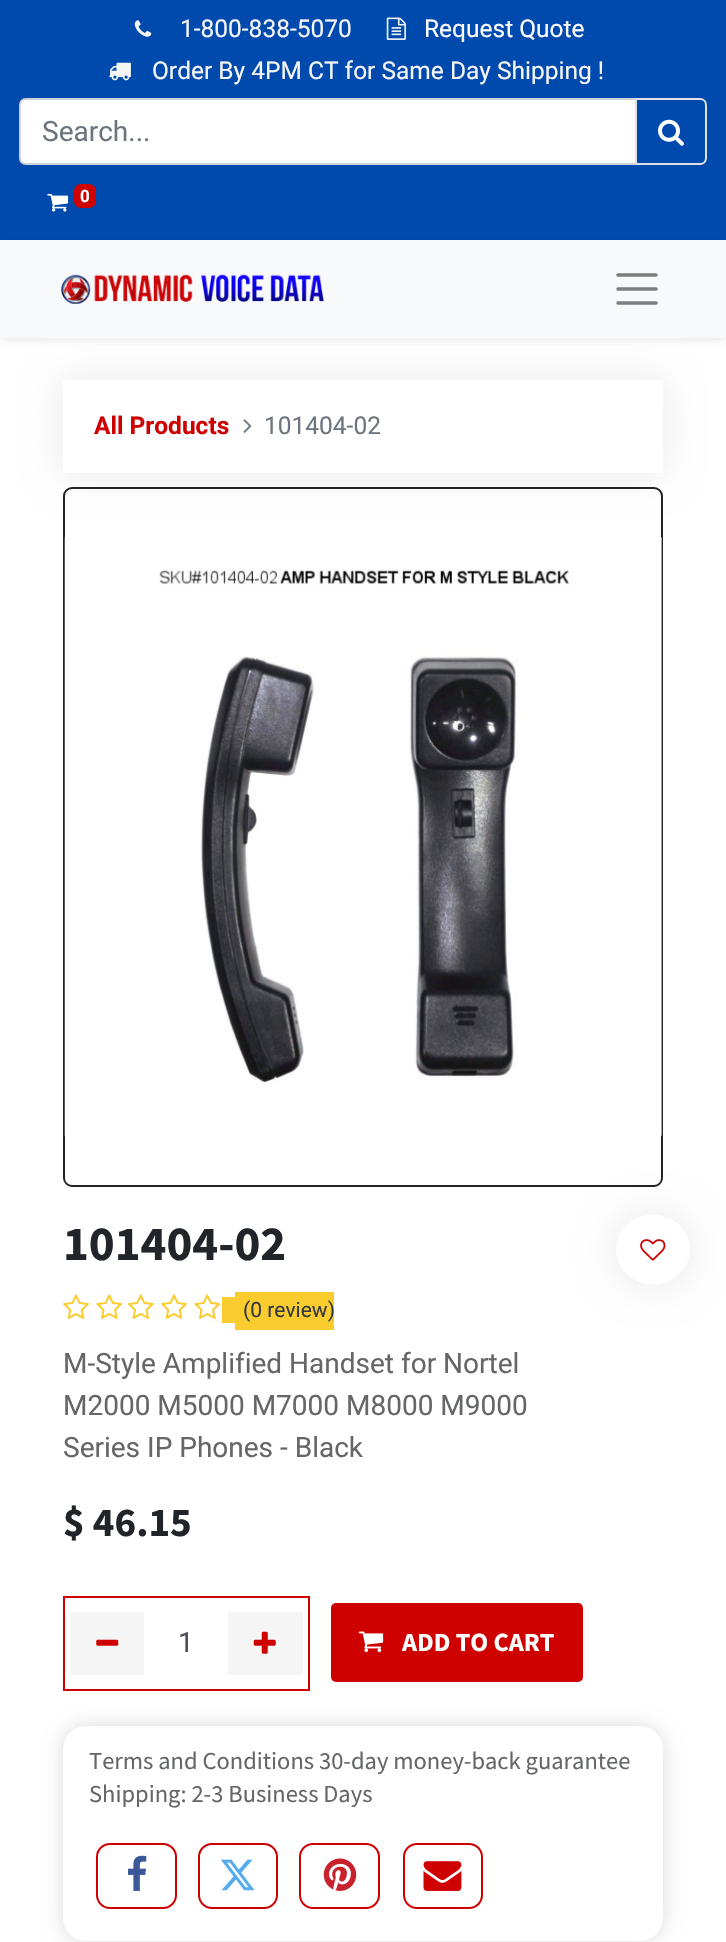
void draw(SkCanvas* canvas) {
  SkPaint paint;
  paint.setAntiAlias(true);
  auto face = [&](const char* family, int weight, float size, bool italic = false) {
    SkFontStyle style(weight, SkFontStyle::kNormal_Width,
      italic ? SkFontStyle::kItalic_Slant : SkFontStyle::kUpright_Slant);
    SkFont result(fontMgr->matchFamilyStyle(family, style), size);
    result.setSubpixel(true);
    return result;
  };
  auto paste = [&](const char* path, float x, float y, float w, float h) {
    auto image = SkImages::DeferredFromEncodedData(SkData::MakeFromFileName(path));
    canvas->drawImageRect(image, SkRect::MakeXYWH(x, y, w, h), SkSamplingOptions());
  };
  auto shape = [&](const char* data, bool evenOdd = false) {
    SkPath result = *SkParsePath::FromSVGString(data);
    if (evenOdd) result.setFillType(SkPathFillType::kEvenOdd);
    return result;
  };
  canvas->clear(0xffffffff);
  paint.setColor(0xff004aad);
  canvas->drawRect(SkRect::MakeXYWH(0, 0, 726, 240), paint);
  paste("img/1.png", 134, 20, 18, 17);
  paste("img/2.png", 386, 17, 20, 23);
  paste("img/3.png", 109, 62, 22, 19);
  paint.setColor(0xffffffff);
  canvas->drawPath(shape("M26 99H636V164H26C22.5 164 20 161.5 20 158V105C20 101.5 22.5 99 26 99Z"), paint);
  paint.setStroke(true);
  paint.setStrokeWidth(2);
  paint.setColor(0xffced4da);
  canvas->drawPath(shape("M26 99H636V164H26C22.5 164 20 161.5 20 158V105C20 101.5 22.5 99 26 99Z"), paint);
  paint.setStroke(false);
  paint.setColor(0xff004aad);
  canvas->drawPath(shape("M636 99H700C703.5 99 706 101.5 706 105V158C706 161.5 703.5 164 700 164H636Z"), paint);
  paint.setStroke(true);
  paint.setColor(0xffdee2e6);
  canvas->drawPath(shape("M636 99H700C703.5 99 706 101.5 706 105V158C706 161.5 703.5 164 700 164H636Z"), paint);
  paste("img/4.png", 658, 119, 26, 27);
  paste("img/5.png", 47, 194, 22, 18);
  paint.setStroke(false);
  paint.setColor(0xffce0000);
  canvas->drawRoundRect(SkRect::MakeXYWH(74, 184, 22, 24), 7, 7, paint);
  paint.setColor(0x12000000);
  paint.setMaskFilter(SkMaskFilter::MakeBlur(kNormal_SkBlurStyle, 3.5f));
  canvas->drawRect(SkRect::MakeXYWH(0, 243, 726, 98), paint);
  paint.setMaskFilter(nullptr);
  paint.setColor(0x17000000);
  paint.setMaskFilter(SkMaskFilter::MakeBlur(kNormal_SkBlurStyle, 19));
  canvas->drawRect(SkRect::MakeXYWH(63, 380, 600, 93), paint);
  paint.setMaskFilter(nullptr);
  paint.setColor(0xfff8f9fa);
  canvas->drawRect(SkRect::MakeXYWH(0, 240, 726, 98), paint);
  paste("img/6.png", 61, 274, 263, 30);
  paint.setStroke(true);
  paint.setStrokeWidth(3.5f);
  paint.setStrokeCap(SkPaint::kRound_Cap);
  paint.setColor(0xff7c7d7d);
  canvas->drawPath(shape("M618 275H656M618 289H656M618 303H656"), paint);
  paint.setStroke(false);
  paint.setColor(0xffffffff);
  canvas->drawRect(SkRect::MakeXYWH(63, 380, 600, 93), paint);
  paste("img/7.png", 243, 419, 9, 14);
  paint.setStroke(true);
  paint.setStrokeWidth(2);
  paint.setStrokeCap(SkPaint::kButt_Cap);
  paint.setColor(0xff212529);
  canvas->drawRoundRect(SkRect::MakeXYWH(64, 488, 598, 698), 8, 8, paint);
  paste("img/8.png", 64, 537, 598, 599);
  paste("img/9.png", 63, 1294, 26, 25);
  paste("img/10.png", 96, 1294, 27, 25);
  paste("img/11.png", 127, 1294, 27, 25);
  paste("img/9.png", 161, 1294, 26, 25);
  paste("img/10.png", 194, 1294, 27, 25);
  paint.setStroke(false);
  paint.setColor(0xfffacc2e);
  canvas->drawRect(SkRect::MakeXYWH(235, 1292, 99, 38), paint);
  canvas->drawRect(SkRect::MakeXYWH(222, 1297, 13, 26), paint);
  paint.setStroke(true);
  paint.setColor(0xffce0000);
  canvas->drawRect(SkRect::MakeXYWH(64, 1597, 245, 93), paint);
  paint.setStroke(false);
  paint.setColor(0xfff5f5f5);
  canvas->drawRect(SkRect::MakeXYWH(70, 1612, 74, 63), paint);
  paste("img/12.png", 96, 1639, 23, 7);
  canvas->drawRect(SkRect::MakeXYWH(228, 1612, 75, 63), paint);
  paste("img/13.png", 253, 1631, 23, 23);
  paint.setColor(0x17000000);
  paint.setMaskFilter(SkMaskFilter::MakeBlur(kNormal_SkBlurStyle, 19));
  canvas->drawRoundRect(SkRect::MakeXYWH(616, 1215, 74, 70), 35, 35, paint);
  paint.setMaskFilter(nullptr);
  paint.setColor(0xffffffff);
  canvas->drawOval(SkRect::MakeXYWH(616, 1214.5f, 74, 70), paint);
  paste("img/14.png", 640, 1239, 26, 22);
  paint.setColor(0xffce0000);
  canvas->drawRoundRect(SkRect::MakeXYWH(332, 1604, 250, 77), 4, 4, paint);
  paint.setStroke(true);
  canvas->drawRoundRect(SkRect::MakeXYWH(332, 1604, 250, 77), 4, 4, paint);
  paste("img/15.png", 358, 1631, 26, 22);
  paint.setStroke(false);
  paint.setColor(0x24000000);
  paint.setMaskFilter(SkMaskFilter::MakeBlur(kNormal_SkBlurStyle, 9.5f));
  canvas->drawRoundRect(SkRect::MakeXYWH(63, 1726, 600, 215), 23, 23, paint);
  paint.setMaskFilter(nullptr);
  paint.setColor(0xffffffff);
  canvas->drawRoundRect(SkRect::MakeXYWH(63, 1726, 600, 215), 23, 23, paint);
  paint.setStroke(true);
  paint.setColor(0xffce0000);
  canvas->drawRoundRect(SkRect::MakeXYWH(97, 1844, 79, 64), 13, 13, paint);
  paste("img/16.png", 128, 1855, 19, 36);
  canvas->drawRoundRect(SkRect::MakeXYWH(199, 1844, 78, 64), 13, 13, paint);
  paste("img/17.png", 220, 1859, 35, 32);
  canvas->drawRoundRect(SkRect::MakeXYWH(300, 1844, 79, 64), 13, 13, paint);
  paste("img/18.png", 323, 1858, 34, 33);
  canvas->drawRoundRect(SkRect::MakeXYWH(404, 1844, 78, 64), 13, 13, paint);
  paste("img/19.png", 423, 1861, 39, 30);
  auto f0 = face("Roboto", 400, 24.5f);
  paint.setStroke(false);
  paint.setColor(0xfff6f6f6);
  canvas->drawString("1-800-838-5070", 180, 37, f0, paint);
  paint.setColor(0xffffffff);
  canvas->drawString("Request Quote", 424, 37, f0, paint);
  paint.setColor(0xfff6f6f6);
  canvas->drawString("Order By 4PM CT for Same Day Shipping !", 152, 79, f0, paint);
  auto f1 = face("Roboto", 400, 28);
  paint.setColor(0xff6c757d);
  canvas->drawString("Search...", 42, 141, f1, paint);
  auto f2 = face("Roboto", 700, 17);
  paint.setColor(0xffffffff);
  canvas->drawString("0", 80, 202, f2, paint);
  auto f3 = face("Roboto", 700, 24.5f);
  paint.setColor(0xffce0000);
  canvas->drawString("All Products", 94, 434, f3, paint);
  paint.setColor(0xff6c757d);
  canvas->drawString("101404-02", 264, 434, f0, paint);
  auto f4 = face("Source Sans Pro", 700, 49);
  paint.setColor(0xff212529);
  canvas->drawString("101404-02", 63, 1260, f4, paint);
  auto f5 = face("Roboto", 400, 21);
  paint.setColor(0xff343a40);
  canvas->drawString("(0 review)", 243, 1317, f5, paint);
  paint.setColor(0xff646669);
  {
    const struct { const char* s; float x, y; } items[] = {
      {"M-Style Amplified Handset for Nortel", 63, 1373},
      {"M2000 M5000 M7000 M8000 M9000", 63, 1415},
      {"Series IP Phones - Black", 63, 1457},
    };
    for (auto [s, x, y] : items) {
      canvas->drawString(s, x, y, f1, paint);
    }
  }
  auto f6 = face("Source Sans Pro", 700, 41);
  paint.setColor(0xff212529);
  canvas->drawString("$ 46.15", 63, 1536, f6, paint);
  paint.setColor(0xff495057);
  canvas->drawString("1", 178, 1652, f1, paint);
  auto f7 = face("Source Sans Pro", 700, 26.25f);
  paint.setColor(0xffffffff);
  canvas->drawString("ADD TO CART", 402, 1651, f7, paint);
  auto f8 = face("Source Sans Pro", 400, 24.5f);
  paint.setColor(0xff646669);
  {
    const struct { const char* s; float x, y; } items[] = {
      {"Terms and Conditions", 89, 1769},
      {"30-day money-back guarantee", 319, 1769},
      {"Shipping: 2-3 Business Days", 89, 1802},
    };
    for (auto [s, x, y] : items) {
      canvas->drawString(s, x, y, f8, paint);
    }
  }
}
